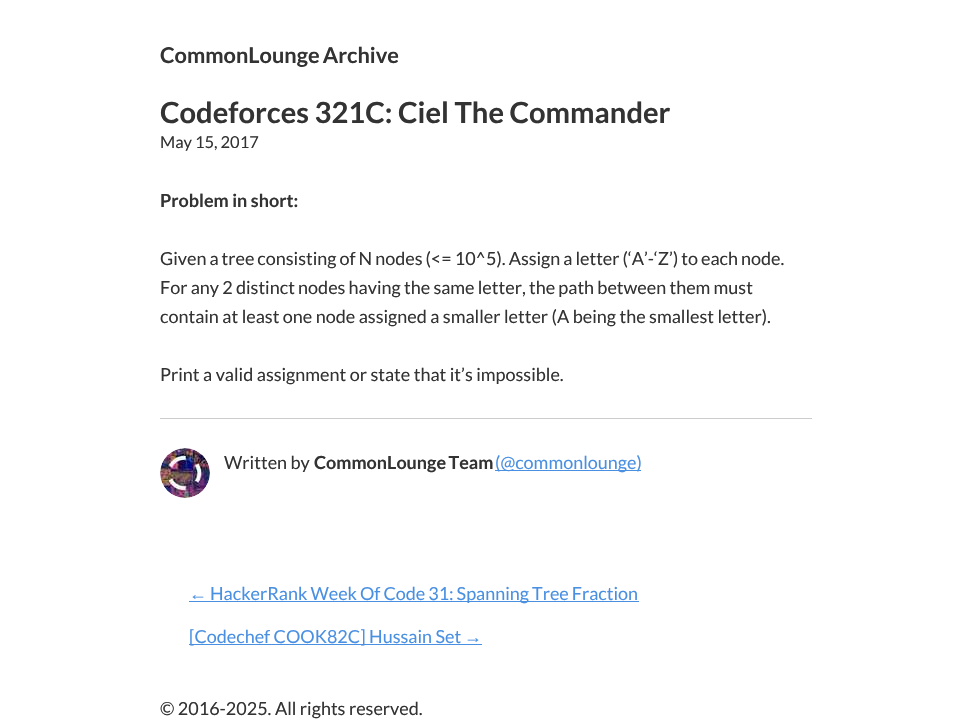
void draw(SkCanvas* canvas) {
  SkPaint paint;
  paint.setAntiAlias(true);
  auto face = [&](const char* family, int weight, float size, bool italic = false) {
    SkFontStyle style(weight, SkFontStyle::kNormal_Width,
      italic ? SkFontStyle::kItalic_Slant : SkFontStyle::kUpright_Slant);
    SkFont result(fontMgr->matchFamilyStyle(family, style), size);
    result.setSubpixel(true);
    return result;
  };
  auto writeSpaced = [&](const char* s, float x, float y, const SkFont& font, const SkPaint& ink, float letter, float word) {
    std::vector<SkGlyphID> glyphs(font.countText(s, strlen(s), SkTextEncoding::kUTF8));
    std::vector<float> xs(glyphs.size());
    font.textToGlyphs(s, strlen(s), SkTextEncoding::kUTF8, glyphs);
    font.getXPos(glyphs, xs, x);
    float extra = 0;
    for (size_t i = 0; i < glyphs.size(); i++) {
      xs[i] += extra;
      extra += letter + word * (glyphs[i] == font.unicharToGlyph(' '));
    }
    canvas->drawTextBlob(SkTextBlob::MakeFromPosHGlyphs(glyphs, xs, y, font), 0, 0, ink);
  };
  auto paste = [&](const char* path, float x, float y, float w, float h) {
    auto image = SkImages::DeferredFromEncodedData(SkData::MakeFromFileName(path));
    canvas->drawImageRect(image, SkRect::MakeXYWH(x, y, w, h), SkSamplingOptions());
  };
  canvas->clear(0xffffffff);
  paint.setColor(0xffcccccc);
  canvas->drawRect(SkRect::MakeXYWH(160, 418, 652, 1), paint);
  paste("img/1.png", 160, 448, 50, 50);
  {
    const struct { float x, y, w, h; SkColor color; } items[] = {
      {495, 470, 146, 1, 0xff4a90e2},
      {189, 601, 450, 1, 0xff4a90e2},
      {189, 644, 293, 1, 0xff4a90e2},
    };
    for (auto [x, y, w, h, color] : items) {
      paint.setColor(color);
      canvas->drawRect(SkRect::MakeXYWH(x, y, w, h), paint);
    }
  }
  auto f0 = face("Lato", 700, 21.75f);
  paint.setColor(0xff333333);
  writeSpaced("CommonLounge Archive", 160, 63, f0, paint, 0, -1);
  auto f1 = face("Lato", 700, 29.1f);
  canvas->drawString("Codeforces 321C: Ciel The Commander", 160, 123, f1, paint);
  auto f2 = face("Lato", 400, 16.5f);
  writeSpaced("May 15, 2017", 160, 148, f2, paint, 0, -0.25f);
  auto f3 = face("Lato", 700, 18);
  canvas->drawString("Problem in short:", 160, 207, f3, paint);
  auto f4 = face("Lato", 400, 18);
  writeSpaced("Given a tree consisting of N nodes (<= 10^5). Assign a letter (‘A’-‘Z’) to each node.", 160, 265, f4, paint, 0, -0.5f);
  writeSpaced("For any 2 distinct nodes having the same letter, the path between them must", 160, 294, f4, paint, 0, -0.25f);
  {
    const struct { const char* s; float x, y; } items[] = {
      {"contain at least one node assigned a smaller letter (A being the smallest letter).", 160, 323},
      {"Print a valid assignment or state that it’s impossible.", 160, 381},
      {"Written by", 224, 469},
    };
    for (auto [s, x, y] : items) {
      canvas->drawString(s, x, y, f4, paint);
    }
  }
  writeSpaced("CommonLounge Team", 314, 469, f3, paint, 0, -1);
  paint.setColor(0xff4a90e2);
  canvas->drawString("(@commonlounge)", 495, 469, f4, paint);
  auto f5 = face("Liberation Sans", 400, 18);
  canvas->drawString("←", 189, 600, f5, paint);
  writeSpaced("HackerRank Week Of Code 31: Spanning Tree Fraction", 210, 600, f4, paint, 0, -0.5f);
  canvas->drawString("[Codechef COOK82C] Hussain Set", 189, 643, f4, paint);
  canvas->drawString("→", 464, 643, f5, paint);
  paint.setColor(0xff333333);
  canvas->drawString("© 2016-2025. All rights reserved.", 160, 715, f4, paint);
}
